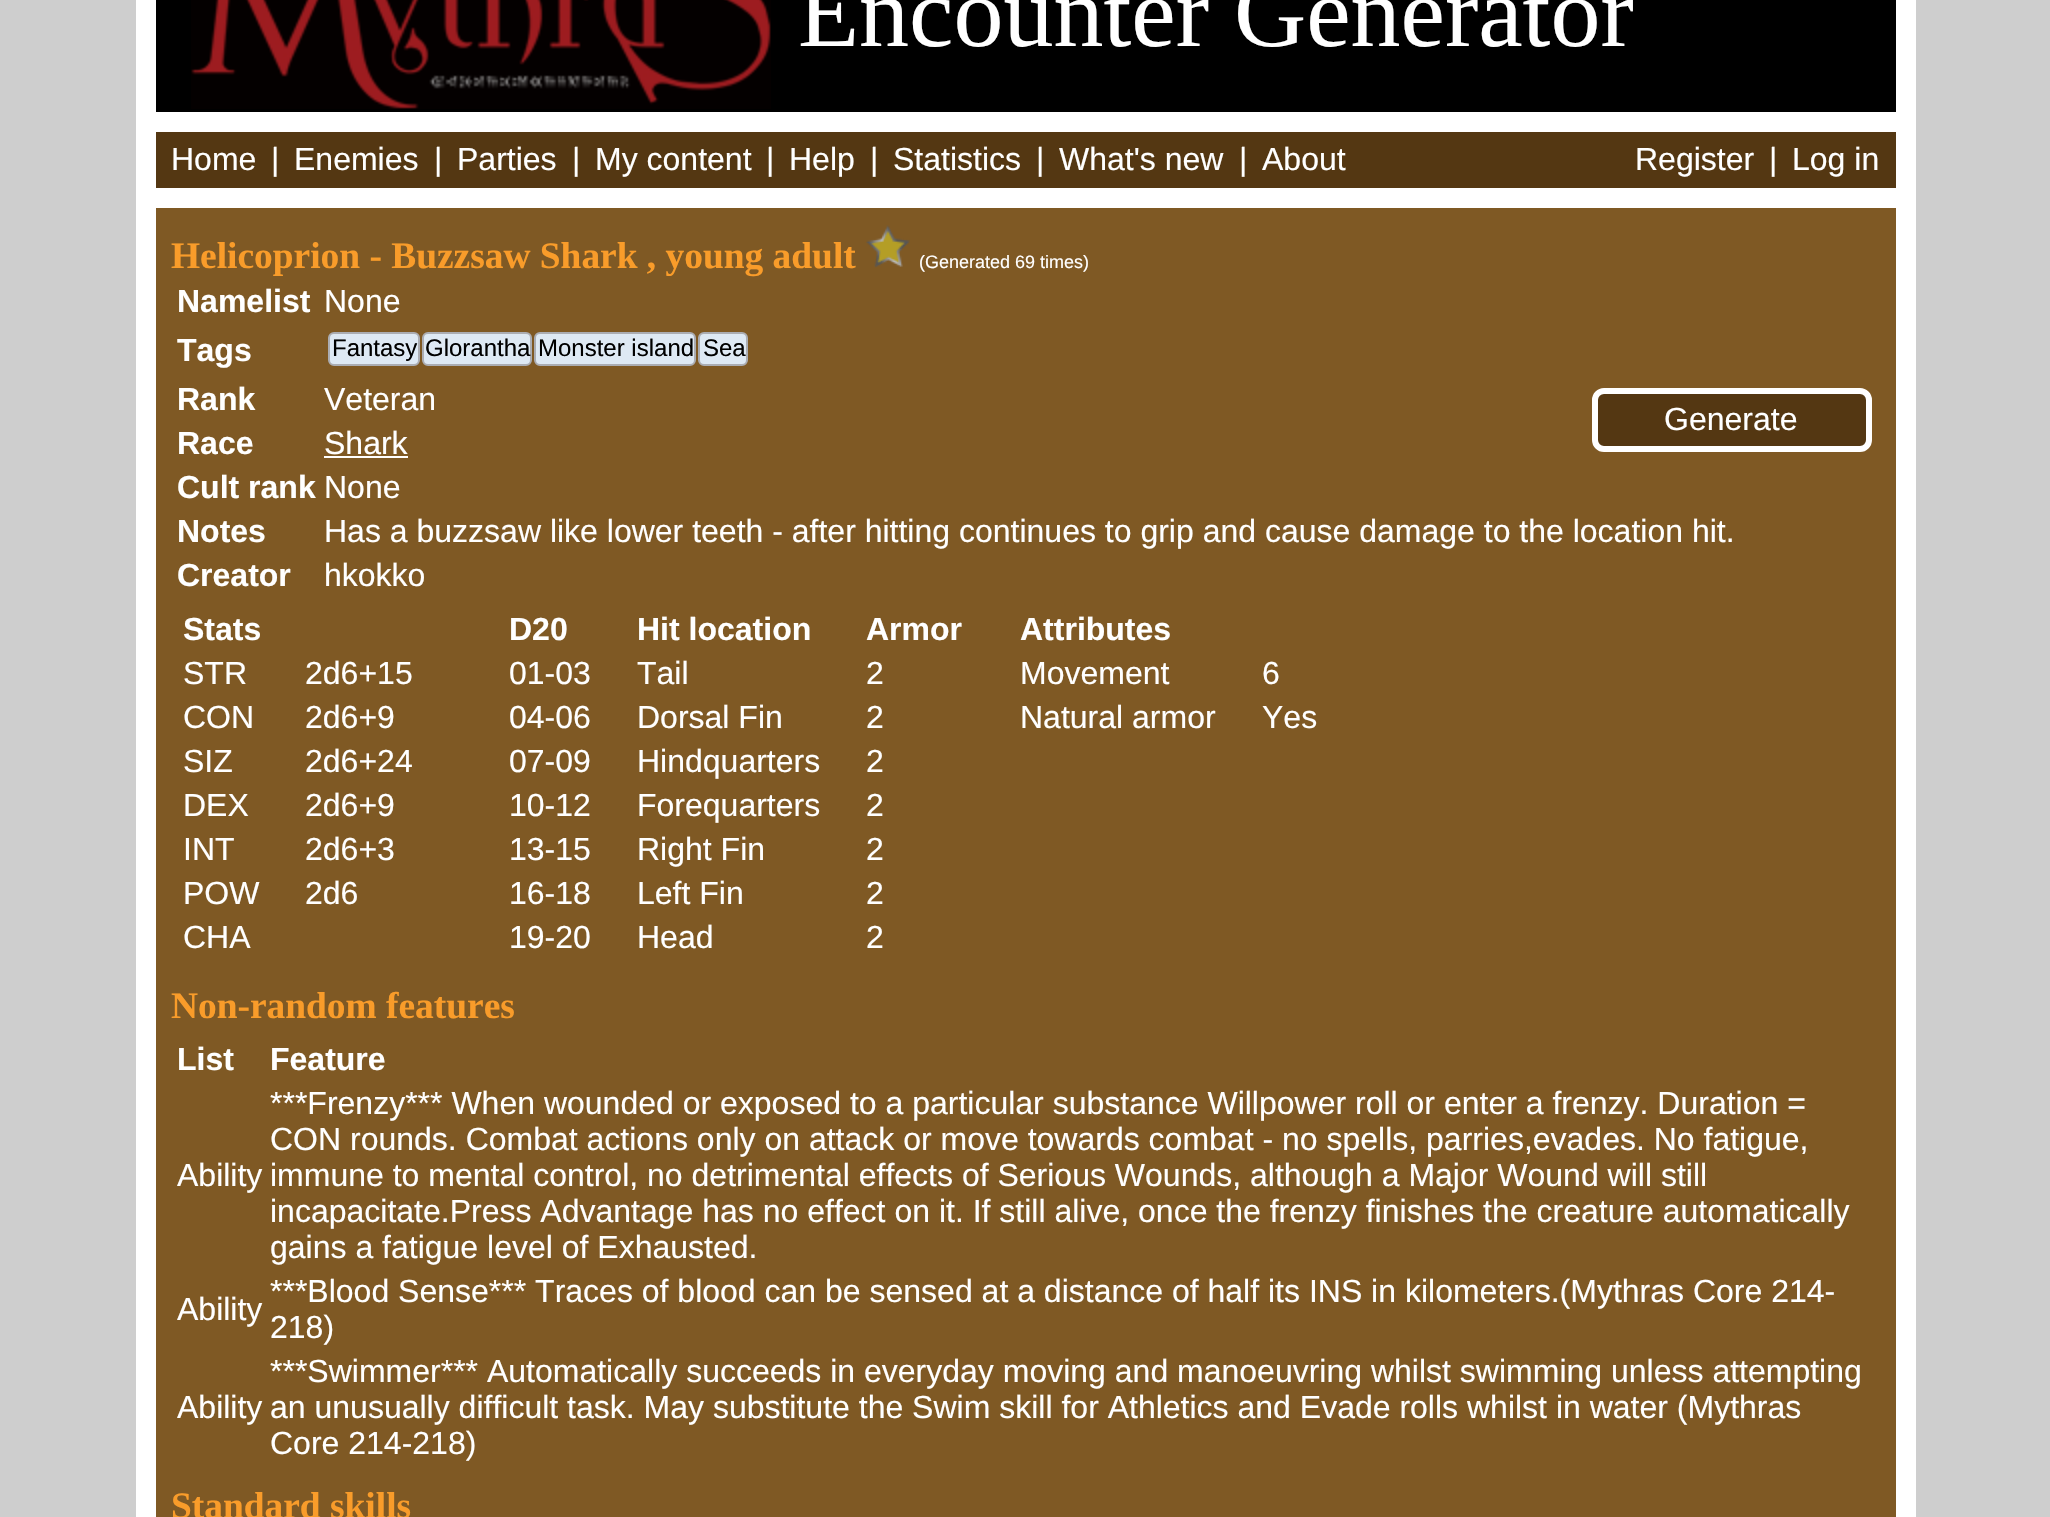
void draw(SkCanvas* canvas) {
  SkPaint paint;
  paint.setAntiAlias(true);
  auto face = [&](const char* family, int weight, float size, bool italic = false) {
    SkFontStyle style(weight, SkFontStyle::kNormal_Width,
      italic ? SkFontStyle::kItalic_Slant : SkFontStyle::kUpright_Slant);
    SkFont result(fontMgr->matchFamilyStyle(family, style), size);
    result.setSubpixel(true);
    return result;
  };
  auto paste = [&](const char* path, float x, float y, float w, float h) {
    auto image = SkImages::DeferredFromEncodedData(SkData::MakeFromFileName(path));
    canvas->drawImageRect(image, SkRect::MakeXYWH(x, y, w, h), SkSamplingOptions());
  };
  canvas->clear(0xffcecece);
  paint.setColor(0xffffffff);
  canvas->drawRect(SkRect::MakeXYWH(136, 0, 1780, 1517), paint);
  paint.setColor(0xff000000);
  canvas->drawRect(SkRect::MakeXYWH(156, 0, 1740, 112), paint);
  paste("img/1.png", 191, 0, 580, 109);
  paint.setColor(0xff543712);
  canvas->drawRect(SkRect::MakeXYWH(156, 132, 1740, 56), paint);
  paint.setColor(0xff7f5924);
  canvas->drawRect(SkRect::MakeXYWH(156, 208, 1740, 1309), paint);
  paste("img/2.png", 866, 225, 44, 43);
  paint.setColor(0xffdee9f4);
  canvas->drawRoundRect(SkRect::MakeXYWH(329, 333, 90, 32), 5, 5, paint);
  paint.setStroke(true);
  paint.setStrokeWidth(2);
  paint.setColor(0xffabadb3);
  canvas->drawRoundRect(SkRect::MakeXYWH(329, 333, 90, 32), 5, 5, paint);
  paint.setStroke(false);
  paint.setColor(0xffdee9f4);
  canvas->drawRoundRect(SkRect::MakeXYWH(423, 333, 108, 32), 5, 5, paint);
  paint.setStroke(true);
  paint.setColor(0xffabadb3);
  canvas->drawRoundRect(SkRect::MakeXYWH(423, 333, 108, 32), 5, 5, paint);
  paint.setStroke(false);
  paint.setColor(0xffdee9f4);
  canvas->drawRoundRect(SkRect::MakeXYWH(535, 333, 160, 32), 5, 5, paint);
  paint.setStroke(true);
  paint.setColor(0xffabadb3);
  canvas->drawRoundRect(SkRect::MakeXYWH(535, 333, 160, 32), 5, 5, paint);
  paint.setStroke(false);
  paint.setColor(0xffdee9f4);
  canvas->drawRoundRect(SkRect::MakeXYWH(699, 333, 48, 32), 5, 5, paint);
  paint.setStroke(true);
  paint.setColor(0xffabadb3);
  canvas->drawRoundRect(SkRect::MakeXYWH(699, 333, 48, 32), 5, 5, paint);
  paint.setStroke(false);
  paint.setColor(0xffffffff);
  canvas->drawRect(SkRect::MakeXYWH(324, 456, 84, 2), paint);
  paint.setColor(0xff543712);
  canvas->drawRoundRect(SkRect::MakeXYWH(1595, 391, 274, 58), 9, 9, paint);
  paint.setStroke(true);
  paint.setStrokeWidth(6);
  paint.setColor(0xffffffff);
  canvas->drawRoundRect(SkRect::MakeXYWH(1595, 391, 274, 58), 9, 9, paint);
  auto f0 = face("Liberation Serif", 400, 100);
  paint.setStroke(false);
  canvas->drawString("Encounter Generator", 798, 46, f0, paint);
  auto f1 = face("Liberation Sans", 400, 32);
  {
    const struct { const char* s; float x, y; } items[] = {
      {"Home", 171, 170},
      {"|", 271, 170},
      {"Enemies", 294, 170},
      {"|", 434, 170},
      {"Parties", 457, 170},
      {"|", 572, 170},
      {"My content", 595, 170},
      {"|", 766, 170},
      {"Help", 789, 170},
      {"|", 870, 170},
      {"Statistics", 893, 170},
      {"|", 1036, 170},
      {"What's new", 1059, 170},
      {"|", 1239, 170},
      {"About", 1262, 170},
      {"Register", 1635, 170},
      {"|", 1769, 170},
      {"Log in", 1792, 170},
    };
    for (auto [s, x, y] : items) {
      canvas->drawString(s, x, y, f1, paint);
    }
  }
  auto f2 = face("Liberation Serif", 700, 37.4f);
  paint.setColor(0xfff99c2a);
  canvas->drawString("Helicoprion - Buzzsaw Shark , young adult", 171, 268, f2, paint);
  auto f3 = face("Liberation Sans", 400, 18);
  paint.setColor(0xffffffff);
  canvas->drawString("(Generated 69 times)", 919, 268, f3, paint);
  auto f4 = face("Liberation Sans", 700, 32);
  canvas->drawString("Namelist", 177, 312, f4, paint);
  canvas->drawString("None", 324, 312, f1, paint);
  canvas->drawString("Tags", 177, 361, f4, paint);
  auto f5 = face("Liberation Sans", 400, 24);
  paint.setColor(0xff000000);
  {
    const struct { const char* s; float x, y; } items[] = {
      {"Fantasy", 332, 356},
      {"Glorantha", 425, 356},
      {"Monster island", 538, 356},
      {"Sea", 703, 356},
    };
    for (auto [s, x, y] : items) {
      canvas->drawString(s, x, y, f5, paint);
    }
  }
  paint.setColor(0xffffffff);
  canvas->drawString("Rank", 177, 410, f4, paint);
  canvas->drawString("Veteran", 324, 410, f1, paint);
  canvas->drawString("Race", 177, 454, f4, paint);
  canvas->drawString("Shark", 324, 454, f1, paint);
  canvas->drawString("Cult rank", 177, 498, f4, paint);
  canvas->drawString("None", 324, 498, f1, paint);
  canvas->drawString("Notes", 177, 542, f4, paint);
  canvas->drawString("Has a buzzsaw like lower teeth - after hitting continues to grip and cause damage to the location hit.", 324, 542, f1, paint);
  canvas->drawString("Creator", 177, 586, f4, paint);
  canvas->drawString("hkokko", 324, 586, f1, paint);
  canvas->drawString("Generate", 1664, 430, f1, paint);
  canvas->drawString("Stats", 183, 640, f4, paint);
  {
    const struct { const char* s; float x, y; } items[] = {
      {"STR", 183, 684},
      {"2d6+15", 305, 684},
      {"CON", 183, 728},
      {"2d6+9", 305, 728},
      {"SIZ", 183, 772},
      {"2d6+24", 305, 772},
      {"DEX", 183, 816},
      {"2d6+9", 305, 816},
      {"INT", 183, 860},
      {"2d6+3", 305, 860},
      {"POW", 183, 904},
      {"2d6", 305, 904},
      {"CHA", 183, 948},
    };
    for (auto [s, x, y] : items) {
      canvas->drawString(s, x, y, f1, paint);
    }
  }
  {
    const struct { const char* s; float x, y; } items[] = {
      {"D20", 509, 640},
      {"Hit location", 637, 640},
      {"Armor", 866, 640},
    };
    for (auto [s, x, y] : items) {
      canvas->drawString(s, x, y, f4, paint);
    }
  }
  {
    const struct { const char* s; float x, y; } items[] = {
      {"01-03", 509, 684},
      {"Tail", 637, 684},
      {"2", 866, 684},
      {"04-06", 509, 728},
      {"Dorsal Fin", 637, 728},
      {"2", 866, 728},
      {"07-09", 509, 772},
      {"Hindquarters", 637, 772},
      {"2", 866, 772},
      {"10-12", 509, 816},
      {"Forequarters", 637, 816},
      {"2", 866, 816},
      {"13-15", 509, 860},
      {"Right Fin", 637, 860},
      {"2", 866, 860},
      {"16-18", 509, 904},
      {"Left Fin", 637, 904},
      {"2", 866, 904},
      {"19-20", 509, 948},
      {"Head", 637, 948},
      {"2", 866, 948},
    };
    for (auto [s, x, y] : items) {
      canvas->drawString(s, x, y, f1, paint);
    }
  }
  canvas->drawString("Attributes", 1020, 640, f4, paint);
  {
    const struct { const char* s; float x, y; } items[] = {
      {"Movement", 1020, 684},
      {"6", 1262, 684},
      {"Natural armor", 1020, 728},
      {"Yes", 1262, 728},
    };
    for (auto [s, x, y] : items) {
      canvas->drawString(s, x, y, f1, paint);
    }
  }
  paint.setColor(0xfff99c2a);
  canvas->drawString("Non-random features", 171, 1018, f2, paint);
  paint.setColor(0xffffffff);
  canvas->drawString("List", 177, 1070, f4, paint);
  canvas->drawString("Feature", 270, 1070, f4, paint);
  {
    const struct { const char* s; float x, y; } items[] = {
      {"Ability", 177, 1186},
      {"***Frenzy*** When wounded or exposed to a particular substance Willpower roll or enter a frenzy. Duration =", 270, 1114},
      {"CON rounds. Combat actions only on attack or move towards combat - no spells, parries,evades. No fatigue,", 270, 1150},
      {"immune to mental control, no detrimental effects of Serious Wounds, although a Major Wound will still", 270, 1186},
      {"incapacitate.Press Advantage has no effect on it. If still alive, once the frenzy finishes the creature automatically", 270, 1222},
      {"gains a fatigue level of Exhausted.", 270, 1258},
      {"Ability", 177, 1320},
      {"***Blood Sense*** Traces of blood can be sensed at a distance of half its INS in kilometers.(Mythras Core 214-", 270, 1302},
      {"218)", 270, 1338},
      {"Ability", 177, 1418},
      {"***Swimmer*** Automatically succeeds in everyday moving and manoeuvring whilst swimming unless attempting", 270, 1382},
      {"an unusually difficult task. May substitute the Swim skill for Athletics and Evade rolls whilst in water (Mythras", 270, 1418},
      {"Core 214-218)", 270, 1454},
    };
    for (auto [s, x, y] : items) {
      canvas->drawString(s, x, y, f1, paint);
    }
  }
  paint.setColor(0xfff99c2a);
  canvas->drawString("Standard skills", 171, 1518, f2, paint);
}
